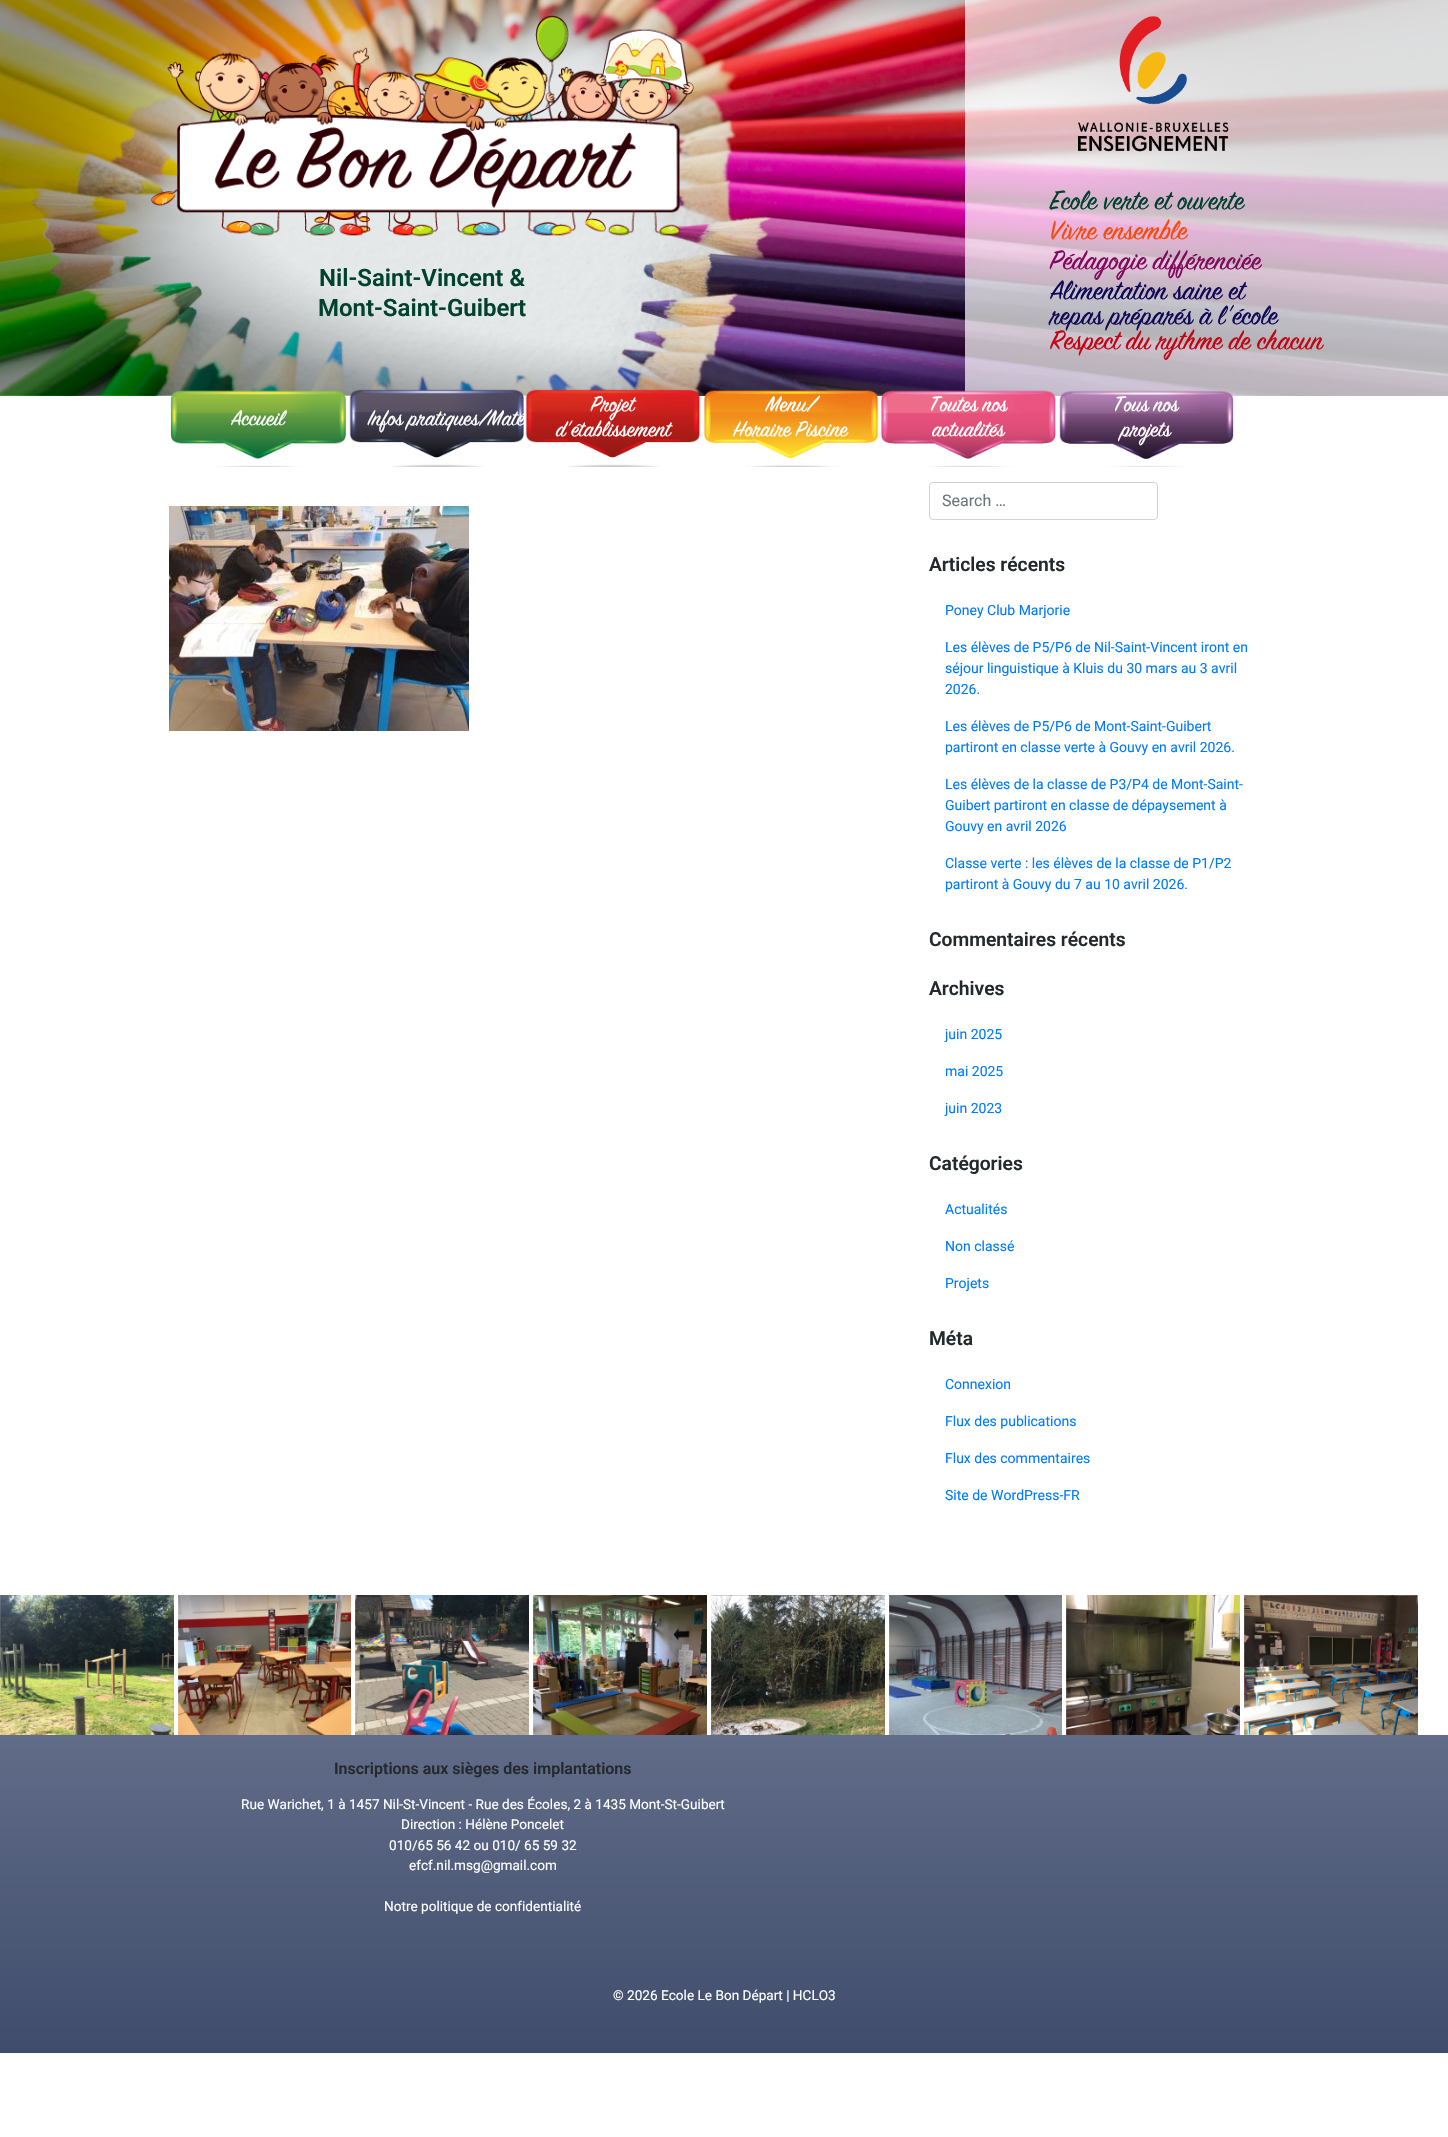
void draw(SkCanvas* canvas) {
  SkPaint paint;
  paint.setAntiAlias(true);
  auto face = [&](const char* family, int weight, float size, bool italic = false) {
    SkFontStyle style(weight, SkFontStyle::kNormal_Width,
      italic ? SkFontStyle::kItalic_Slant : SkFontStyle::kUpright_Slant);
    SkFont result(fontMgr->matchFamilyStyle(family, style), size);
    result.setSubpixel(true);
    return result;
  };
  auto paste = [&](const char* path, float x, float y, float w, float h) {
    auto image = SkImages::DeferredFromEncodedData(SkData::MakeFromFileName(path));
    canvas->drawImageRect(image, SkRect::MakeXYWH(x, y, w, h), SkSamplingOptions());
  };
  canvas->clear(0xffffffff);
  paste("img/1.png", 0, 0, 1448, 396);
  paste("img/2.png", 151, 15, 543, 222);
  paint.setColor(0xb3ffffff);
  canvas->drawRect(SkRect::MakeXYWH(965, 0, 483, 396), paint);
  paste("img/3.png", 1078, 16, 151, 136);
  paste("img/4.png", 170, 390, 176, 77);
  paste("img/5.png", 349, 389, 175, 78);
  paste("img/7.png", 703, 390, 176, 77);
  paste("img/8.png", 880, 390, 176, 77);
  paste("img/9.png", 1059, 390, 175, 77);
  paste("img/10.png", 169, 506, 300, 225);
  paint.setStroke(true);
  paint.setStrokeWidth(1);
  paint.setColor(0xffced4da);
  canvas->drawRoundRect(SkRect::MakeXYWH(929.5f, 482.5f, 228, 37), 3.5f, 3.5f, paint);
  paste("img/11.png", 0, 1595, 174, 140);
  paste("img/12.png", 178, 1595, 173, 140);
  paste("img/13.png", 355, 1595, 174, 140);
  paste("img/14.png", 533, 1595, 174, 140);
  paste("img/15.png", 711, 1595, 174, 140);
  paste("img/16.png", 889, 1595, 173, 140);
  paste("img/17.png", 1066, 1595, 174, 140);
  paste("img/18.png", 1244, 1595, 174, 140);
  paint.setStroke(false);
  {
    const SkColor colors[] = {0xff606c88, 0xff3f4c6b};
    const float stops[] = {0, 1};
    const SkPoint ends[] = {{724, 1735}, {724, 2053}};
    paint.setShader(SkGradientShader::MakeLinear(ends, colors, stops, 2, SkTileMode::kClamp));
    paint.setAlpha(255);
  }
  canvas->drawRect(SkRect::MakeXYWH(0, 1735, 1448, 318), paint);
  auto f0 = face("Roboto", 600, 24);
  paint.setShader(nullptr);
  paint.setColor(0xff00422e);
  canvas->drawString("Nil-Saint-Vincent &", 319, 286, f0, paint);
  canvas->drawString("Mont-Saint-Guibert", 318, 316, f0, paint);
  auto f1 = face("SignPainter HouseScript", 400, 30);
  canvas->drawString("Ecole verte et ouverte", 1050, 209, f1, paint);
  paint.setColor(0xfff54d10);
  canvas->drawString("Vivre ensemble", 1050, 239, f1, paint);
  paint.setColor(0xff82095e);
  canvas->drawString("Pédagogie différenciée", 1050, 269, f1, paint);
  paint.setColor(0xff100957);
  canvas->drawString("Alimentation saine et", 1050, 299, f1, paint);
  canvas->drawString("repas préparés à l'école", 1050, 324, f1, paint);
  paint.setColor(0xffc10717);
  canvas->drawString("Respect du rythme de chacun", 1050, 349, f1, paint);
  auto f2 = face("SignPainter HouseScript", 400, 24);
  paint.setColor(0xffffffff);
  canvas->drawString("Accueil", 231, 425, f2, paint);
  canvas->drawString("Infos pratiques/Maté", 368, 425, f2, paint);
  paste("img/6.png", 525, 389, 176, 78);
  {
    const struct { const char* s; float x, y; } items[] = {
      {"Projet", 591, 411},
      {"d’établissement", 556, 436},
      {"Menu/", 766, 411},
      {"Horaire Piscine", 733, 436},
      {"Toutes nos", 930, 411},
      {"actualités", 932, 436},
      {"Tous nos", 1114, 411},
      {"projets", 1121, 436},
    };
    for (auto [s, x, y] : items) {
      canvas->drawString(s, x, y, f2, paint);
    }
  }
  auto f3 = face("Roboto", 400, 16);
  paint.setColor(0xff6c757d);
  canvas->drawString("Search …", 942, 506, f3, paint);
  auto f4 = face("Roboto", 600, 19.25f);
  paint.setColor(0xff24292e);
  canvas->drawString("Articles récents", 929, 571, f4, paint);
  auto f5 = face("Roboto", 400, 14);
  paint.setColor(0xff007bff);
  {
    const struct { const char* s; float x, y; } items[] = {
      {"Poney Club Marjorie", 945, 615},
      {"Les élèves de P5/P6 de Nil-Saint-Vincent iront en", 945, 652},
      {"séjour linguistique à Kluis du 30 mars au 3 avril", 945, 673},
      {"2026.", 945, 694},
      {"Les élèves de P5/P6 de Mont-Saint-Guibert", 945, 731},
      {"partiront en classe verte à Gouvy en avril 2026.", 945, 752},
      {"Les élèves de la classe de P3/P4 de Mont-Saint-", 945, 789},
      {"Guibert partiront en classe de dépaysement à", 945, 810},
      {"Gouvy en avril 2026", 945, 831},
      {"Classe verte : les élèves de la classe de P1/P2", 945, 868},
      {"partiront à Gouvy du 7 au 10 avril 2026.", 945, 889},
    };
    for (auto [s, x, y] : items) {
      canvas->drawString(s, x, y, f5, paint);
    }
  }
  paint.setColor(0xff24292e);
  canvas->drawString("Commentaires récents", 929, 946, f4, paint);
  canvas->drawString("Archives", 929, 995, f4, paint);
  paint.setColor(0xff007bff);
  {
    const struct { const char* s; float x, y; } items[] = {
      {"juin 2025", 945, 1039},
      {"mai 2025", 945, 1076},
      {"juin 2023", 945, 1113},
    };
    for (auto [s, x, y] : items) {
      canvas->drawString(s, x, y, f5, paint);
    }
  }
  paint.setColor(0xff24292e);
  canvas->drawString("Catégories", 929, 1170, f4, paint);
  paint.setColor(0xff007bff);
  {
    const struct { const char* s; float x, y; } items[] = {
      {"Actualités", 945, 1214},
      {"Non classé", 945, 1251},
      {"Projets", 945, 1288},
    };
    for (auto [s, x, y] : items) {
      canvas->drawString(s, x, y, f5, paint);
    }
  }
  paint.setColor(0xff24292e);
  canvas->drawString("Méta", 929, 1345, f4, paint);
  paint.setColor(0xff007bff);
  {
    const struct { const char* s; float x, y; } items[] = {
      {"Connexion", 945, 1389},
      {"Flux des publications", 945, 1426},
      {"Flux des commentaires", 945, 1463},
      {"Site de WordPress-FR", 945, 1500},
    };
    for (auto [s, x, y] : items) {
      canvas->drawString(s, x, y, f5, paint);
    }
  }
  auto f6 = face("Roboto", 600, 16);
  paint.setColor(0xff24292e);
  canvas->drawString("Inscriptions aux sièges des implantations", 334, 1774, f6, paint);
  auto f7 = face("Roboto", 400, 13.6f);
  paint.setColor(0xffffffff);
  {
    const struct { const char* s; float x, y; } items[] = {
      {"Rue Warichet, 1 à 1457 Nil-St-Vincent - Rue des Écoles, 2 à 1435 Mont-St-Guibert", 241, 1809},
      {"Direction : Hélène Poncelet", 401, 1829},
      {"010/65 56 42 ou 010/ 65 59 32", 389, 1850},
      {"efcf.nil.msg@gmail.com", 409, 1870},
      {"Notre politique de confidentialité", 384, 1911},
      {"© 2026 Ecole Le Bon Départ | HCLO3", 613, 2000},
    };
    for (auto [s, x, y] : items) {
      canvas->drawString(s, x, y, f7, paint);
    }
  }
}
